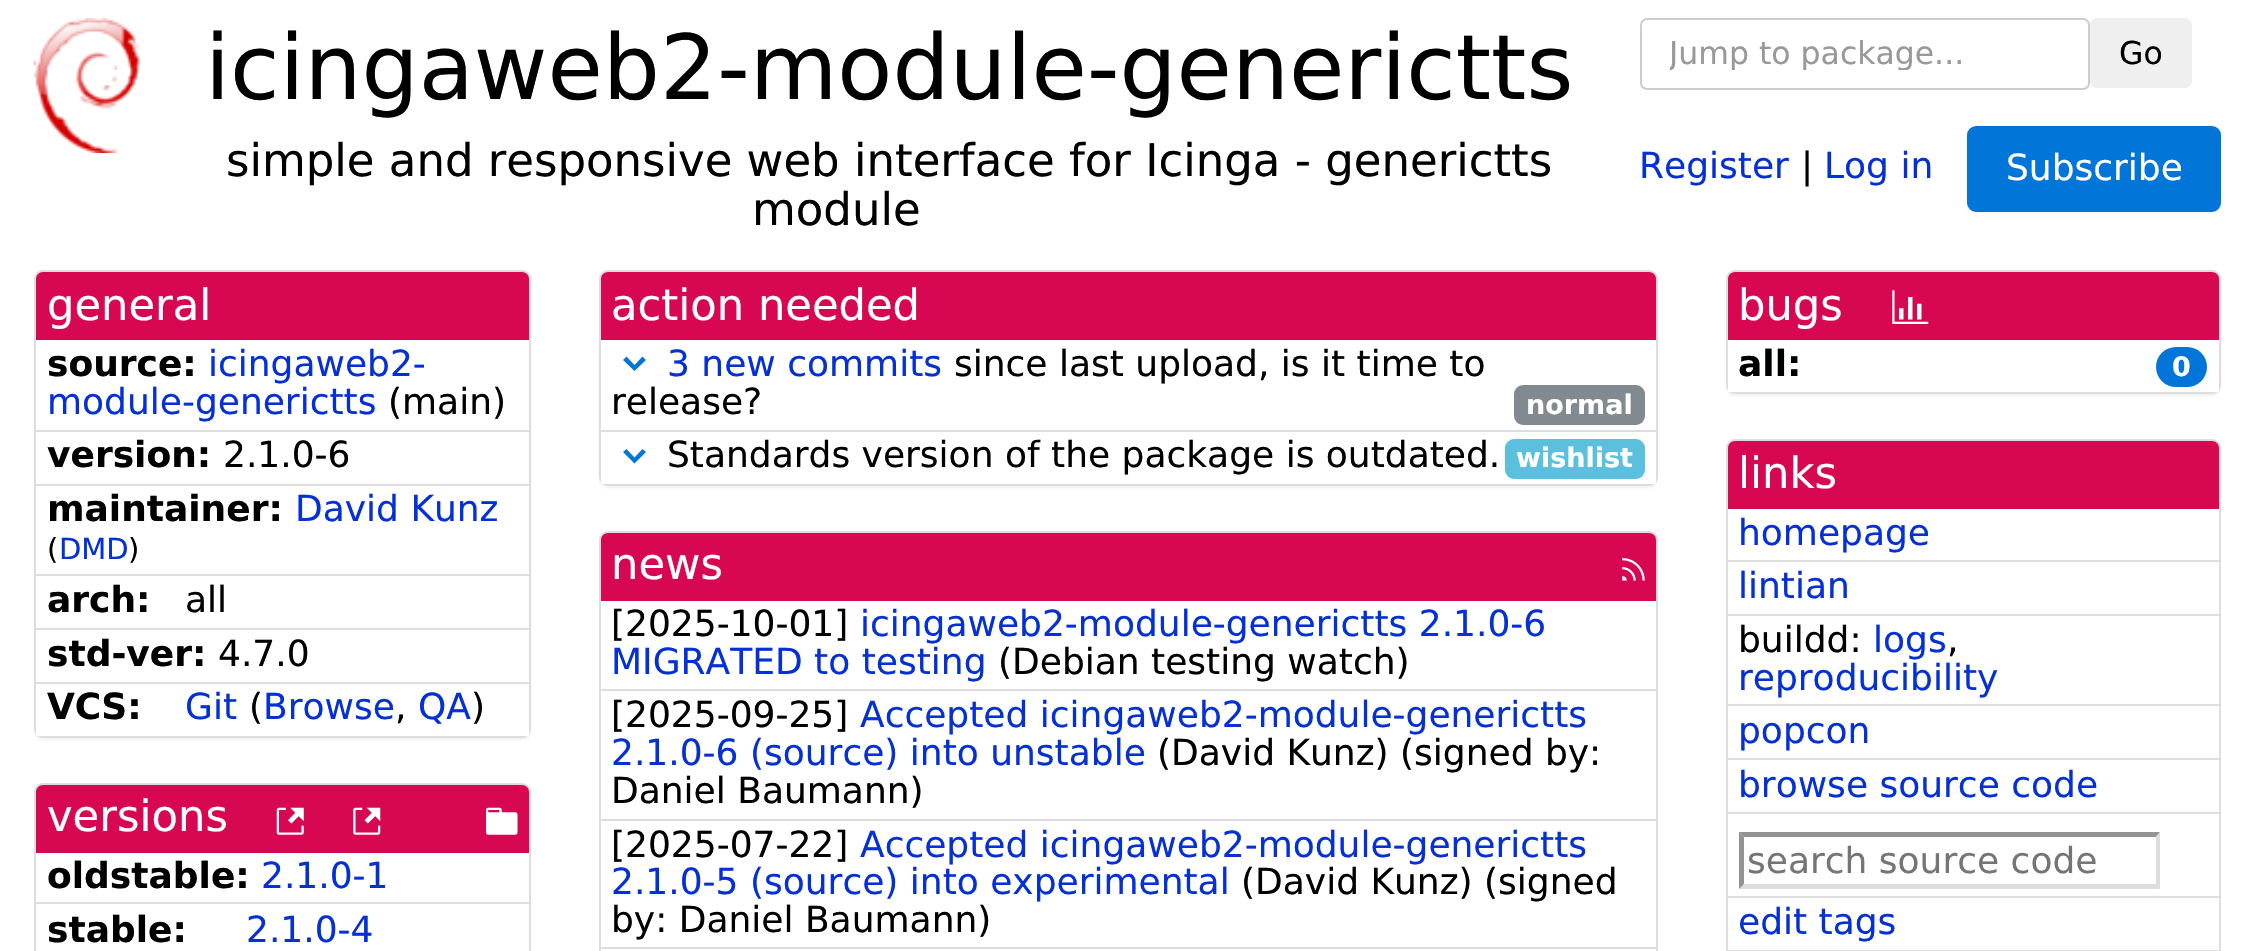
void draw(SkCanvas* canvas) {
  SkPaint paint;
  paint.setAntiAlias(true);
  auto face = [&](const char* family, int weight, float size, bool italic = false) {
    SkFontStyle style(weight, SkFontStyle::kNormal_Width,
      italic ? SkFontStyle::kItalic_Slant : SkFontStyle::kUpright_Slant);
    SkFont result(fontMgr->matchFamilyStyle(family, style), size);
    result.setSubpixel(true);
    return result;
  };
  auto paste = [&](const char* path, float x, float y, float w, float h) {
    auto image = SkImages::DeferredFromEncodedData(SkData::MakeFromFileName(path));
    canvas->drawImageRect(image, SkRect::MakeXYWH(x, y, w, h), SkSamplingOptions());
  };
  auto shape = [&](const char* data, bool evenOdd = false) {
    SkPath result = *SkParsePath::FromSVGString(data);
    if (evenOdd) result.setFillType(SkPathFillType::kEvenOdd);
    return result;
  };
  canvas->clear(0xffffffff);
  paste("img/1.png", 33, 18, 107, 135);
  paint.setStroke(true);
  paint.setStrokeWidth(2);
  paint.setColor(0xffcccccc);
  canvas->drawRoundRect(SkRect::MakeXYWH(1641, 19, 448, 70), 6, 6, paint);
  paint.setStroke(false);
  paint.setColor(0xffefefef);
  canvas->drawRoundRect(SkRect::MakeXYWH(2090, 18, 102, 70), 7, 7, paint);
  paint.setColor(0xff0275d8);
  canvas->drawRoundRect(SkRect::MakeXYWH(1968, 127, 252, 84), 8, 8, paint);
  paint.setStroke(true);
  canvas->drawRoundRect(SkRect::MakeXYWH(1968, 127, 252, 84), 8, 8, paint);
  paint.setStroke(false);
  paint.setColor(0x0d000000);
  paint.setMaskFilter(SkMaskFilter::MakeBlur(kNormal_SkBlurStyle, 1));
  canvas->drawRoundRect(SkRect::MakeXYWH(34, 272, 497, 468), 9, 9, paint);
  paint.setMaskFilter(nullptr);
  paint.setStroke(true);
  paint.setColor(0xffdddddd);
  canvas->drawRoundRect(SkRect::MakeXYWH(35, 271, 495, 466), 8, 8, paint);
  paint.setStroke(false);
  paint.setColor(0xffd70751);
  canvas->drawPath(shape("M43 272H522C526 272 529 275 529 279V342H36V279C36 275 39 272 43 272Z"), paint);
  {
    const struct { float x, y, w, h; SkColor color; } items[] = {
      {36, 340, 493, 396, 0xffffffff},
      {36, 430, 493, 2, 0xffdddddd},
      {36, 484, 493, 2, 0xffdddddd},
      {36, 574, 493, 2, 0xffdddddd},
      {36, 628, 493, 2, 0xffdddddd},
      {36, 682, 493, 2, 0xffdddddd},
    };
    for (auto [x, y, w, h, color] : items) {
      paint.setColor(color);
      canvas->drawRect(SkRect::MakeXYWH(x, y, w, h), paint);
    }
  }
  paint.setStroke(true);
  canvas->drawRoundRect(SkRect::MakeXYWH(35, 784, 495, 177), 8, 8, paint);
  paint.setStroke(false);
  paint.setColor(0xffd70751);
  canvas->drawPath(shape("M43 785H522C526 785 529 788 529 792V855H36V792C36 788 39 785 43 785Z"), paint);
  paste("img/2.png", 276, 807, 28, 28);
  paste("img/3.png", 353, 807, 28, 28);
  paste("img/4.png", 486, 807, 32, 28);
  paint.setColor(0xffffffff);
  canvas->drawRect(SkRect::MakeXYWH(36, 853, 493, 2), paint);
  paint.setColor(0xffdddddd);
  canvas->drawRect(SkRect::MakeXYWH(36, 902, 493, 2), paint);
  paint.setColor(0x0d000000);
  paint.setMaskFilter(SkMaskFilter::MakeBlur(kNormal_SkBlurStyle, 1));
  canvas->drawRoundRect(SkRect::MakeXYWH(599, 272, 1059, 216), 9, 9, paint);
  paint.setMaskFilter(nullptr);
  paint.setStroke(true);
  paint.setColor(0xffdddddd);
  canvas->drawRoundRect(SkRect::MakeXYWH(600, 271, 1057, 214), 8, 8, paint);
  paint.setStroke(false);
  paint.setColor(0xffd70751);
  canvas->drawPath(shape("M608 272H1649C1653 272 1656 275 1656 279V342H601V279C601 275 604 272 608 272Z"), paint);
  paint.setColor(0xffffffff);
  canvas->drawRect(SkRect::MakeXYWH(601, 340, 1055, 144), paint);
  paint.setColor(0xff0275d8);
  canvas->drawPath(shape("M634.5 371L623 360L626.5 356.5L634.5 365L642.5 356.5L646 360Z"), paint);
  paint.setColor(0xff818a91);
  canvas->drawRoundRect(SkRect::MakeXYWH(1514, 385, 131, 40), 9, 9, paint);
  paint.setColor(0xffdddddd);
  canvas->drawRect(SkRect::MakeXYWH(601, 430, 1055, 2), paint);
  paint.setColor(0xff0275d8);
  canvas->drawPath(shape("M634.5 463.5L623 452L626.5 449L634.5 457.5L642.5 449L646 452Z"), paint);
  paint.setColor(0xff5bc0de);
  canvas->drawRoundRect(SkRect::MakeXYWH(1505, 439, 140, 40), 9, 9, paint);
  paint.setStroke(true);
  paint.setColor(0xffdddddd);
  canvas->drawRoundRect(SkRect::MakeXYWH(600, 532, 1057, 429), 8, 8, paint);
  paint.setStroke(false);
  paint.setColor(0xffd70751);
  canvas->drawPath(shape("M608 533H1649C1653 533 1656 536 1656 540V603H601V540C601 536 604 533 608 533Z"), paint);
  paste("img/5.png", 1622, 558, 23, 23);
  {
    const struct { float x, y, w, h; SkColor color; } items[] = {
      {601, 601, 1055, 2, 0xffffffff},
      {601, 689, 1055, 2, 0xffdddddd},
      {601, 819, 1055, 2, 0xffdddddd},
      {601, 947, 1055, 2, 0xffdddddd},
    };
    for (auto [x, y, w, h, color] : items) {
      paint.setColor(color);
      canvas->drawRect(SkRect::MakeXYWH(x, y, w, h), paint);
    }
  }
  paint.setColor(0x0d000000);
  paint.setMaskFilter(SkMaskFilter::MakeBlur(kNormal_SkBlurStyle, 1));
  canvas->drawRoundRect(SkRect::MakeXYWH(1726, 272, 495, 124), 9, 9, paint);
  paint.setMaskFilter(nullptr);
  paint.setStroke(true);
  paint.setColor(0xffdddddd);
  canvas->drawRoundRect(SkRect::MakeXYWH(1727, 271, 493, 122), 8, 8, paint);
  paint.setStroke(false);
  paint.setColor(0xffd70751);
  canvas->drawPath(shape("M1735 272H2212C2216 272 2219 275 2219 279V342H1728V279C1728 275 1731 272 1735 272Z"), paint);
  paste("img/6.png", 1892, 290, 37, 34);
  paint.setColor(0xffffffff);
  canvas->drawRect(SkRect::MakeXYWH(1728, 340, 491, 52), paint);
  paint.setColor(0xff0275d8);
  canvas->drawRoundRect(SkRect::MakeXYWH(2156, 347, 51, 40), 20, 20, paint);
  paint.setStroke(true);
  paint.setColor(0xffdddddd);
  canvas->drawRoundRect(SkRect::MakeXYWH(1727, 440, 493, 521), 8, 8, paint);
  paint.setStroke(false);
  paint.setColor(0xffd70751);
  canvas->drawPath(shape("M1735 441H2212C2216 441 2219 444 2219 448V511H1728V448C1728 444 1731 441 1735 441Z"), paint);
  {
    const struct { float x, y, w, h; SkColor color; } items[] = {
      {1728, 509, 491, 2, 0xffffffff},
      {1728, 560, 491, 2, 0xffdddddd},
      {1728, 614, 491, 2, 0xffdddddd},
      {1728, 704, 491, 2, 0xffdddddd},
      {1728, 758, 491, 2, 0xffdddddd},
      {1728, 812, 491, 2, 0xffdddddd},
      {1728, 896, 491, 2, 0xffdddddd},
    };
    for (auto [x, y, w, h, color] : items) {
      paint.setColor(color);
      canvas->drawRect(SkRect::MakeXYWH(x, y, w, h), paint);
    }
  }
  paint.setColor(0xff939393);
  canvas->drawPath(shape("M1739 832H2160L2156 837H1744Z"), paint);
  paint.setColor(0xffdddddd);
  canvas->drawPath(shape("M2160 832V889L2156 884V837Z"), paint);
  canvas->drawPath(shape("M2160 889H1739L1744 884H2156Z"), paint);
  paint.setColor(0xff939393);
  canvas->drawPath(shape("M1739 889V832L1744 837V884Z"), paint);
  paint.setColor(0xffdddddd);
  canvas->drawRect(SkRect::MakeXYWH(1728, 950, 491, 1), paint);
  auto f0 = face("DejaVu Sans", 400, 90);
  paint.setColor(0xff000000);
  canvas->drawString("icingaweb2-module-generictts", 205, 99, f0, paint);
  auto f1 = face("DejaVu Sans", 400, 45);
  canvas->drawString("simple and responsive web interface for Icinga - generictts", 226, 176, f1, paint);
  canvas->drawString("module", 752, 225, f1, paint);
  canvas->save();
  canvas->clipRect(SkRect::MakeXYWH(1670, 34, 382, 36));
  auto f2 = face("DejaVu Sans", 400, 31.5f);
  paint.setColor(0xff999999);
  canvas->drawString("Jump to package...", 1669, 64, f2, paint);
  canvas->restore();
  paint.setColor(0xff000000);
  canvas->drawString("Go", 2119, 64, f2, paint);
  auto f3 = face("DejaVu Sans", 400, 36);
  paint.setColor(0xff0530d7);
  canvas->drawString("Register", 1639, 178, f3, paint);
  paint.setColor(0xff000000);
  canvas->drawString("|", 1801, 178, f3, paint);
  paint.setColor(0xff0530d7);
  canvas->drawString("Log in", 1824, 178, f3, paint);
  paint.setColor(0xffffffff);
  canvas->drawString("Subscribe", 2006, 180, f3, paint);
  auto f4 = face("DejaVu Sans", 400, 43.25f);
  canvas->drawString("general", 47, 320, f4, paint);
  auto f5 = face("DejaVu Sans", 700, 36);
  paint.setColor(0xff000000);
  canvas->drawString("source:", 47, 376, f5, paint);
  paint.setColor(0xff0530d7);
  canvas->drawString("icingaweb2-", 208, 376, f3, paint);
  canvas->drawString("module-generictts", 47, 414, f3, paint);
  paint.setColor(0xff000000);
  canvas->drawString("(main)", 388, 414, f3, paint);
  canvas->drawString("version:", 47, 467, f5, paint);
  canvas->drawString("2.1.0-6", 223, 467, f3, paint);
  canvas->drawString("maintainer:", 47, 521, f5, paint);
  paint.setColor(0xff0530d7);
  canvas->drawString("David Kunz", 295, 521, f3, paint);
  auto f6 = face("DejaVu Sans", 400, 29);
  paint.setColor(0xff000000);
  canvas->drawString("(", 47, 559, f6, paint);
  paint.setColor(0xff0530d7);
  canvas->drawString("DMD", 59, 559, f6, paint);
  paint.setColor(0xff000000);
  canvas->drawString(")", 128, 559, f6, paint);
  canvas->drawString("arch:", 47, 612, f5, paint);
  canvas->drawString("all", 185, 612, f3, paint);
  canvas->drawString("std-ver:", 47, 666, f5, paint);
  canvas->drawString("4.7.0", 218, 666, f3, paint);
  canvas->drawString("VCS:", 47, 719, f5, paint);
  paint.setColor(0xff0530d7);
  canvas->drawString("Git", 185, 719, f3, paint);
  paint.setColor(0xff000000);
  canvas->drawString("(", 249, 719, f3, paint);
  paint.setColor(0xff0530d7);
  canvas->drawString("Browse", 263, 719, f3, paint);
  paint.setColor(0xff000000);
  canvas->drawString(",", 395, 719, f3, paint);
  paint.setColor(0xff0530d7);
  canvas->drawString("QA", 418, 719, f3, paint);
  paint.setColor(0xff000000);
  canvas->drawString(")", 471, 719, f3, paint);
  paint.setColor(0xffffffff);
  canvas->drawString("versions", 47, 831, f4, paint);
  paint.setColor(0xff000000);
  canvas->drawString("oldstable:", 47, 888, f5, paint);
  paint.setColor(0xff0530d7);
  canvas->drawString("2.1.0-1", 261, 888, f3, paint);
  paint.setColor(0xff000000);
  canvas->drawString("stable:", 47, 942, f5, paint);
  paint.setColor(0xff0530d7);
  canvas->drawString("2.1.0-4", 246, 942, f3, paint);
  paint.setColor(0xffffffff);
  canvas->drawString("action needed", 611, 320, f4, paint);
  paint.setColor(0xff0530d7);
  canvas->drawString("3 new commits", 667, 376, f3, paint);
  paint.setColor(0xff000000);
  canvas->drawString("since last upload, is it time to", 954, 376, f3, paint);
  canvas->drawString("release?", 611, 414, f3, paint);
  auto f7 = face("DejaVu Sans", 700, 27);
  paint.setColor(0xffffffff);
  canvas->drawString("normal", 1526, 414, f7, paint);
  paint.setColor(0xff000000);
  canvas->drawString("Standards version of the package is outdated.", 667, 467, f3, paint);
  paint.setColor(0xffffffff);
  canvas->drawString("wishlist", 1516, 467, f7, paint);
  canvas->drawString("news", 611, 579, f4, paint);
  paint.setColor(0xff000000);
  canvas->drawString("[2025-10-01]", 611, 636, f3, paint);
  paint.setColor(0xff0530d7);
  canvas->drawString("icingaweb2-module-generictts 2.1.0-6", 860, 636, f3, paint);
  canvas->drawString("MIGRATED to testing", 611, 674, f3, paint);
  paint.setColor(0xff000000);
  canvas->drawString("(Debian testing watch)", 998, 674, f3, paint);
  canvas->drawString("[2025-09-25]", 611, 727, f3, paint);
  paint.setColor(0xff0530d7);
  canvas->drawString("Accepted icingaweb2-module-generictts", 860, 727, f3, paint);
  canvas->drawString("2.1.0-6 (source) into unstable", 611, 765, f3, paint);
  paint.setColor(0xff000000);
  {
    const struct { const char* s; float x, y; } items[] = {
      {"(David Kunz) (signed by:", 1157, 765},
      {"Daniel Baumann)", 611, 803},
      {"[2025-07-22]", 611, 857},
    };
    for (auto [s, x, y] : items) {
      canvas->drawString(s, x, y, f3, paint);
    }
  }
  paint.setColor(0xff0530d7);
  canvas->drawString("Accepted icingaweb2-module-generictts", 860, 857, f3, paint);
  canvas->drawString("2.1.0-5 (source) into experimental", 611, 894, f3, paint);
  paint.setColor(0xff000000);
  canvas->drawString("(David Kunz) (signed", 1241, 894, f3, paint);
  canvas->drawString("by: Daniel Baumann)", 611, 932, f3, paint);
  paint.setColor(0xffffffff);
  canvas->drawString("bugs", 1738, 320, f4, paint);
  paint.setColor(0xff000000);
  canvas->drawString("all:", 1738, 376, f5, paint);
  paint.setColor(0xffffffff);
  canvas->drawString("0", 2172, 376, f7, paint);
  canvas->drawString("links", 1738, 488, f4, paint);
  paint.setColor(0xff0530d7);
  canvas->drawString("homepage", 1738, 545, f3, paint);
  canvas->drawString("lintian", 1738, 598, f3, paint);
  paint.setColor(0xff000000);
  canvas->drawString("buildd:", 1738, 652, f3, paint);
  paint.setColor(0xff0530d7);
  canvas->drawString("logs", 1873, 652, f3, paint);
  paint.setColor(0xff000000);
  canvas->drawString(",", 1947, 652, f3, paint);
  paint.setColor(0xff0530d7);
  {
    const struct { const char* s; float x, y; } items[] = {
      {"reproducibility", 1738, 690},
      {"popcon", 1738, 743},
      {"browse source code", 1738, 797},
    };
    for (auto [s, x, y] : items) {
      canvas->drawString(s, x, y, f3, paint);
    }
  }
  paint.setColor(0xff757575);
  canvas->drawString("search source code", 1747, 873, f3, paint);
  paint.setColor(0xff0530d7);
  canvas->drawString("edit tags", 1738, 934, f3, paint);
}
